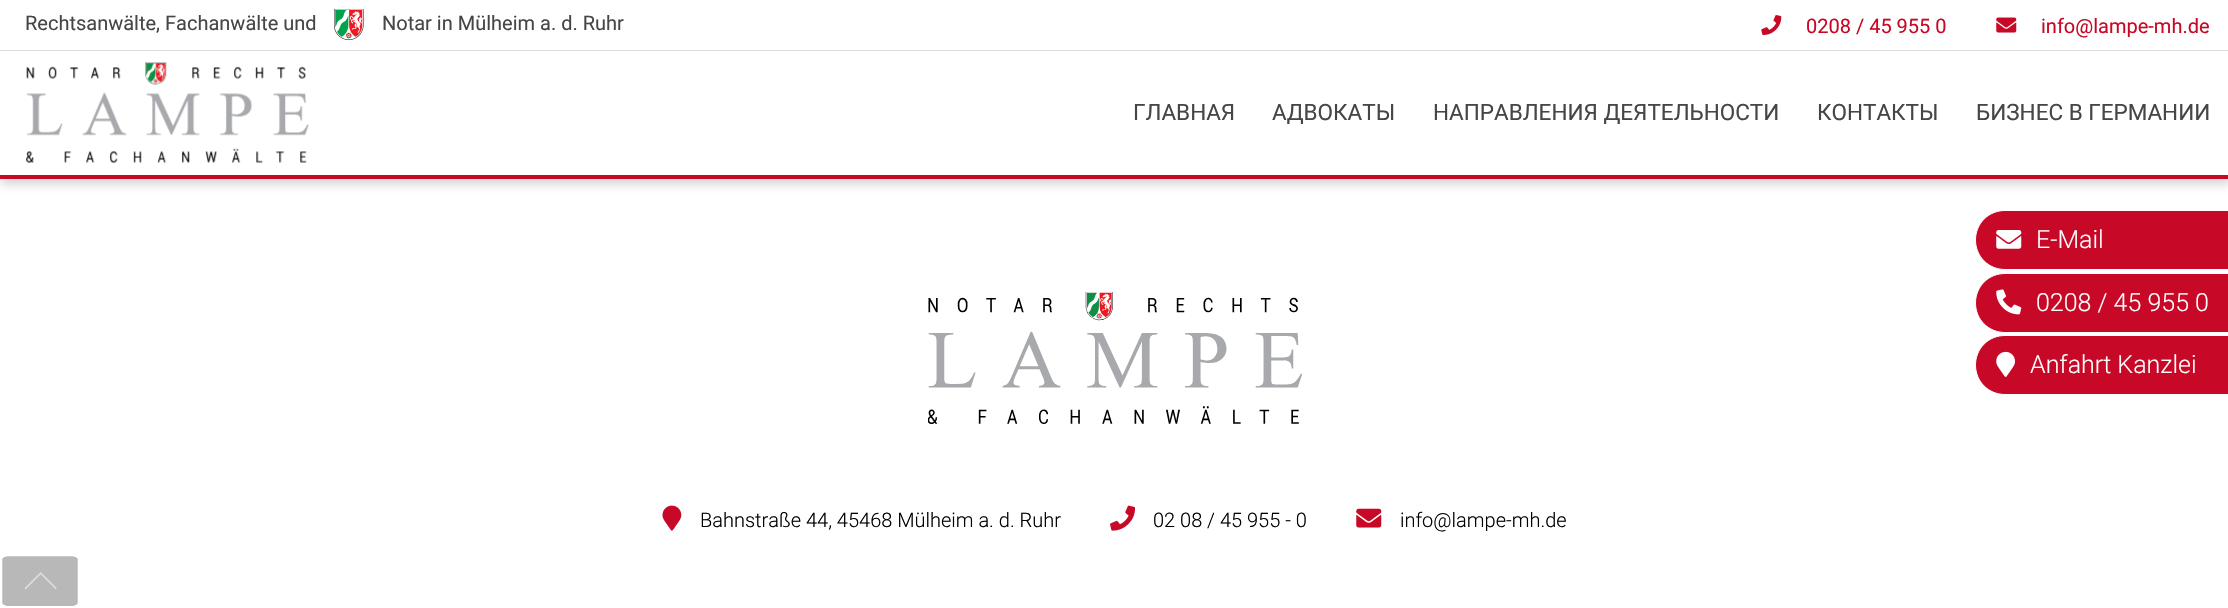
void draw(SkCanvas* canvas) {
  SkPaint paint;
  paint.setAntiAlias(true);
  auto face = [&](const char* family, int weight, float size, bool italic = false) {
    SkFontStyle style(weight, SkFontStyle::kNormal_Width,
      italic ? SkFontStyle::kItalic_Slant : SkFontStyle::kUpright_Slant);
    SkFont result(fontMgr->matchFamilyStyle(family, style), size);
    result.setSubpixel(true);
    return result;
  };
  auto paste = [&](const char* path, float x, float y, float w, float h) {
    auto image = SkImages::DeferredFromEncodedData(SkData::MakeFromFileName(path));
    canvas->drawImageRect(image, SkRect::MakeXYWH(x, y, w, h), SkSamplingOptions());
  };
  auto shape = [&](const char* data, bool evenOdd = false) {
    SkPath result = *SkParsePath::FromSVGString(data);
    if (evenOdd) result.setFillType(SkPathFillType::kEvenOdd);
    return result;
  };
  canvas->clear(0xffffffff);
  paint.setColor(0x80a3a3a3);
  paint.setMaskFilter(SkMaskFilter::MakeBlur(kNormal_SkBlurStyle, 5));
  canvas->drawRect(SkRect::MakeXYWH(1, 5, 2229, 179), paint);
  paint.setMaskFilter(nullptr);
  {
    const struct { float x, y, w, h; SkColor color; } items[] = {
      {0, 0, 2228, 175, 0xffffffff},
      {0, 175, 2228, 4, 0xffc70927},
      {0, 50, 2228, 1, 0xffdcdddf},
    };
    for (auto [x, y, w, h, color] : items) {
      paint.setColor(color);
      canvas->drawRect(SkRect::MakeXYWH(x, y, w, h), paint);
    }
  }
  paste("img/1.png", 334, 9, 30, 31);
  paste("img/2.png", 1761, 15, 21, 20);
  paste("img/3.png", 1996, 17, 21, 16);
  paste("img/4.png", 26, 62, 283, 101);
  paint.setColor(0xffc70927);
  canvas->drawPath(shape("M2005 210.5H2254C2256.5 210.5 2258.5 212.5 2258.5 215V265C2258.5 267.5 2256.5 269.5 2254 269.5H2005C1988.5 269.5 1975.5 256.5 1975.5 240C1975.5 223.5 1988.5 210.5 2005 210.5Z"), paint);
  paint.setStroke(true);
  paint.setStrokeWidth(1);
  paint.setColor(0xffffffff);
  canvas->drawPath(shape("M2005 210.5H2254C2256.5 210.5 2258.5 212.5 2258.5 215V265C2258.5 267.5 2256.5 269.5 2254 269.5H2005C1988.5 269.5 1975.5 256.5 1975.5 240C1975.5 223.5 1988.5 210.5 2005 210.5Z"), paint);
  paste("img/5.png", 1996, 230, 26, 19);
  paint.setStroke(false);
  paint.setColor(0xffc70927);
  canvas->drawPath(shape("M2005 273.5H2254C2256.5 273.5 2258.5 275.5 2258.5 278V328C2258.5 330.5 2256.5 332.5 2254 332.5H2005C1988.5 332.5 1975.5 319.5 1975.5 303C1975.5 286.5 1988.5 273.5 2005 273.5Z"), paint);
  paint.setStroke(true);
  paint.setColor(0xffffffff);
  canvas->drawPath(shape("M2005 273.5H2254C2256.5 273.5 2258.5 275.5 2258.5 278V328C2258.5 330.5 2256.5 332.5 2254 332.5H2005C1988.5 332.5 1975.5 319.5 1975.5 303C1975.5 286.5 1988.5 273.5 2005 273.5Z"), paint);
  paste("img/6.png", 1996, 289, 26, 26);
  paint.setStroke(false);
  paint.setColor(0xffc70927);
  canvas->drawPath(shape("M2005 335.5H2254C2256.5 335.5 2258.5 337.5 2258.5 340V390C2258.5 392.5 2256.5 394.5 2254 394.5H2005C1988.5 394.5 1975.5 381.5 1975.5 365C1975.5 348.5 1988.5 335.5 2005 335.5Z"), paint);
  paint.setStroke(true);
  paint.setColor(0xffffffff);
  canvas->drawPath(shape("M2005 335.5H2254C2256.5 335.5 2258.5 337.5 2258.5 340V390C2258.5 392.5 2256.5 394.5 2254 394.5H2005C1988.5 394.5 1975.5 381.5 1975.5 365C1975.5 348.5 1988.5 335.5 2005 335.5Z"), paint);
  paste("img/7.png", 1996, 351, 19, 26);
  paint.setStroke(false);
  paint.setColor(0xffb8b8b8);
  canvas->drawPath(shape("M8 556H72C75 556 78 558 78 559V603C78 605 75 606 72 606H8C5 606 2 605 2 603V559C2 558 5 556 8 556Z"), paint);
  paste("img/8.png", 25, 572, 32, 18);
  paint.setStroke(true);
  paint.setStrokeWidth(2.5f);
  paint.setColor(0xffffffff);
  canvas->drawPath(shape("M8 555H72C75.5 555 79 557 79 559V603C79 605.5 75.5 607.5 72 607.5H8C4.5 607.5 1 605.5 1 603V559C1 557 4.5 555 8 555Z"), paint);
  paste("img/9.png", 928, 292, 375, 132);
  paste("img/10.png", 662, 505, 20, 26);
  paste("img/11.png", 1110, 505, 25, 26);
  paste("img/12.png", 1356, 508, 26, 20);
  auto f0 = face("Roboto", 400, 20);
  paint.setStroke(false);
  paint.setColor(0xff464646);
  canvas->drawString("Rechtsanwälte, Fachanwälte und", 25, 30, f0, paint);
  canvas->drawString("Notar in Mülheim a. d. Ruhr", 382, 30, f0, paint);
  paint.setColor(0xffc70927);
  canvas->drawString("0208 / 45 955 0", 1806, 33, f0, paint);
  canvas->drawString("info@lampe-mh.de", 2041, 33, f0, paint);
  auto f1 = face("Roboto", 400, 22.5f);
  paint.setColor(0xff464646);
  {
    const struct { const char* s; float x, y; } items[] = {
      {"ГЛАВНАЯ", 1133, 120},
      {"АДВОКАТЫ", 1272, 120},
      {"НАПРАВЛЕНИЯ ДЕЯТЕЛЬНОСТИ", 1433, 120},
      {"КОНТАКТЫ", 1817, 120},
      {"БИЗНЕС В ГЕРМАНИИ", 1976, 120},
    };
    for (auto [s, x, y] : items) {
      canvas->drawString(s, x, y, f1, paint);
    }
  }
  auto f2 = face("Roboto", 300, 25);
  paint.setColor(0xffffffff);
  {
    const struct { const char* s; float x, y; } items[] = {
      {"E-Mail", 2036, 248},
      {"0208 / 45 955 0", 2036, 311},
      {"Anfahrt Kanzlei", 2030, 373},
    };
    for (auto [s, x, y] : items) {
      canvas->drawString(s, x, y, f2, paint);
    }
  }
  auto f3 = face("Roboto", 300, 20);
  paint.setColor(0xff000000);
  {
    const struct { const char* s; float x, y; } items[] = {
      {"Bahnstraße 44, 45468 Mülheim a. d. Ruhr", 700, 527},
      {"02 08 / 45 955 - 0", 1153, 527},
      {"info@lampe-mh.de", 1400, 527},
    };
    for (auto [s, x, y] : items) {
      canvas->drawString(s, x, y, f3, paint);
    }
  }
}
